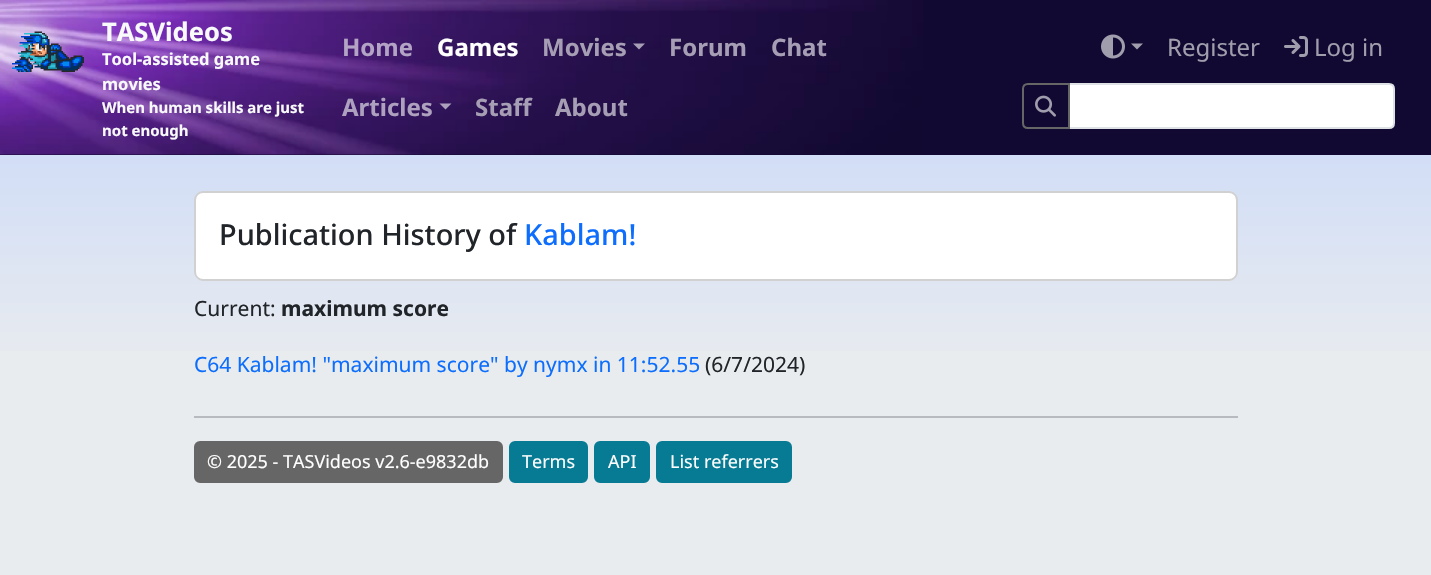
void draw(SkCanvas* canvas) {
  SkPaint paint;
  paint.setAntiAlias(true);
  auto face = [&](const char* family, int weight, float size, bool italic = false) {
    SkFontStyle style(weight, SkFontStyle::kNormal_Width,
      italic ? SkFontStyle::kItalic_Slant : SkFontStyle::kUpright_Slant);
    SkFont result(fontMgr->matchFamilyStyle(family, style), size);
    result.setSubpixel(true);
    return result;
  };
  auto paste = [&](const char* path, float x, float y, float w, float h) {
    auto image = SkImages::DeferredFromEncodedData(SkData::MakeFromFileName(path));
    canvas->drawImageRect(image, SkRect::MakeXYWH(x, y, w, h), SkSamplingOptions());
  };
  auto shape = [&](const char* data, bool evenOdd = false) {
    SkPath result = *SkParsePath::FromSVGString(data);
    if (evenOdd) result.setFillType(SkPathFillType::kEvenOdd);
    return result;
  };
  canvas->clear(0xffe9ecef);
  {
    const SkColor colors[] = {0xffc2d4fc, 0xffe9ecef};
    const float stops[] = {0, 0.74f};
    const SkPoint ends[] = {{716, 0}, {716, 507}};
    paint.setShader(SkGradientShader::MakeLinear(ends, colors, stops, 2, SkTileMode::kClamp));
    paint.setAlpha(255);
  }
  canvas->drawRect(SkRect::MakeXYWH(0, 155, 1431, 196), paint);
  paint.setShader(nullptr);
  paint.setColor(0xff110931);
  canvas->drawRect(SkRect::MakeXYWH(0, 0, 1431, 155), paint);
  paste("img/1.png", 0, 0, 923, 155);
  paste("img/2.png", 0, 0, 84, 97);
  paint.setColor(0xffa79fb6);
  canvas->drawPath(shape("M633 43.5H645L639 49.5Z"), paint);
  paint.setColor(0x99ffffff);
  canvas->drawPath(shape("M439.5 103.5H451.5L445.5 109.5Z"), paint);
  paste("img/3.png", 1101, 34, 24, 25);
  paint.setColor(0xffa09dad);
  canvas->drawPath(shape("M1131 43.5H1143L1137 49.5Z"), paint);
  paste("img/4.png", 1284, 36, 24, 21);
  paint.setColor(0xffffffff);
  canvas->drawPath(shape("M1069 84H1389C1392 84 1394 86 1394 89V123C1394 126 1392 128 1389 128H1069Z"), paint);
  paint.setStroke(true);
  paint.setStrokeWidth(2);
  paint.setColor(0xffdee2e6);
  canvas->drawPath(shape("M1069 84H1389C1392 84 1394 86 1394 89V123C1394 126 1392 128 1389 128H1069Z"), paint);
  paint.setColor(0xff666666);
  canvas->drawPath(shape("M1028 84H1069V128H1028C1025 128 1023 126 1023 123V89C1023 86 1025 84 1028 84Z"), paint);
  paste("img/5.png", 1035, 95, 21, 22);
  paint.setStroke(false);
  paint.setColor(0xffffffff);
  canvas->drawRoundRect(SkRect::MakeXYWH(194, 191, 1044, 90), 9, 9, paint);
  paint.setStroke(true);
  paint.setColor(0x2e000000);
  canvas->drawRoundRect(SkRect::MakeXYWH(195, 192, 1042, 88), 8, 8, paint);
  paint.setStroke(false);
  paint.setColor(0xffb7babe);
  canvas->drawRect(SkRect::MakeXYWH(194, 416, 1044, 2), paint);
  paint.setColor(0xff666666);
  canvas->drawRoundRect(SkRect::MakeXYWH(195, 442, 307, 40), 5, 5, paint);
  paint.setStroke(true);
  canvas->drawRoundRect(SkRect::MakeXYWH(195, 442, 307, 40), 5, 5, paint);
  paint.setStroke(false);
  paint.setColor(0xff067b93);
  canvas->drawRoundRect(SkRect::MakeXYWH(510, 442, 77, 40), 5, 5, paint);
  paint.setStroke(true);
  canvas->drawRoundRect(SkRect::MakeXYWH(510, 442, 77, 40), 5, 5, paint);
  paint.setStroke(false);
  canvas->drawRoundRect(SkRect::MakeXYWH(595, 442, 54, 40), 5, 5, paint);
  paint.setStroke(true);
  canvas->drawRoundRect(SkRect::MakeXYWH(595, 442, 54, 40), 5, 5, paint);
  paint.setStroke(false);
  canvas->drawRoundRect(SkRect::MakeXYWH(657, 442, 134, 40), 5, 5, paint);
  paint.setStroke(true);
  canvas->drawRoundRect(SkRect::MakeXYWH(657, 442, 134, 40), 5, 5, paint);
  auto f0 = face("Noto Sans", 700, 25.5f);
  paint.setStroke(false);
  paint.setColor(0xfff8f9fa);
  canvas->drawString("TASVideos", 102, 41, f0, paint);
  auto f1 = face("Noto Sans", 700, 16.5f);
  canvas->drawString("Tool-assisted game", 102, 65, f1, paint);
  canvas->drawString("movies", 102, 90, f1, paint);
  auto f2 = face("Noto Sans", 700, 15);
  canvas->drawString("When human skills are just", 102, 113, f2, paint);
  canvas->drawString("not enough", 102, 136, f2, paint);
  auto f3 = face("Noto Sans", 700, 24);
  paint.setColor(0xffb3a3c5);
  canvas->drawString("Home", 342, 56, f3, paint);
  paint.setColor(0xffffffff);
  canvas->drawString("Games", 437, 56, f3, paint);
  paint.setColor(0xffa69eb4);
  {
    const struct { const char* s; float x, y; } items[] = {
      {"Movies", 542, 56},
      {"Forum", 669, 56},
      {"Chat", 771, 56},
    };
    for (auto [s, x, y] : items) {
      canvas->drawString(s, x, y, f3, paint);
    }
  }
  paint.setColor(0xffaea1bf);
  canvas->drawString("Articles", 342, 116, f3, paint);
  paint.setColor(0xffa69eb4);
  canvas->drawString("Staff", 475, 116, f3, paint);
  canvas->drawString("About", 555, 116, f3, paint);
  auto f4 = face("Noto Sans", 400, 24);
  paint.setColor(0xffa09dad);
  canvas->drawString("Register", 1167, 56, f4, paint);
  canvas->drawString("Log in", 1314, 56, f4, paint);
  auto f5 = face("Noto Sans", 500, 28.9f);
  paint.setColor(0xff212529);
  canvas->drawString("Publication History of", 219, 245, f5, paint);
  paint.setColor(0xff0d6efd);
  canvas->drawString("Kablam!", 524, 245, f5, paint);
  auto f6 = face("Noto Sans", 400, 21);
  paint.setColor(0xff212529);
  canvas->drawString("Current:", 194, 316, f6, paint);
  auto f7 = face("Noto Sans", 700, 21);
  canvas->drawString("maximum score", 281, 316, f7, paint);
  paint.setColor(0xff0d6efd);
  canvas->drawString("C64 Kablam! \"maximum score\" by nymx in 11:52.55", 194, 372, f6, paint);
  paint.setColor(0xff212529);
  canvas->drawString("(6/7/2024)", 705, 372, f6, paint);
  auto f8 = face("Noto Sans", 400, 18);
  paint.setColor(0xffffffff);
  {
    const struct { const char* s; float x, y; } items[] = {
      {"© 2025 - TASVideos v2.6-e9832db", 207, 468},
      {"Terms", 522, 468},
      {"API", 608, 468},
      {"List referrers", 670, 468},
    };
    for (auto [s, x, y] : items) {
      canvas->drawString(s, x, y, f8, paint);
    }
  }
}
